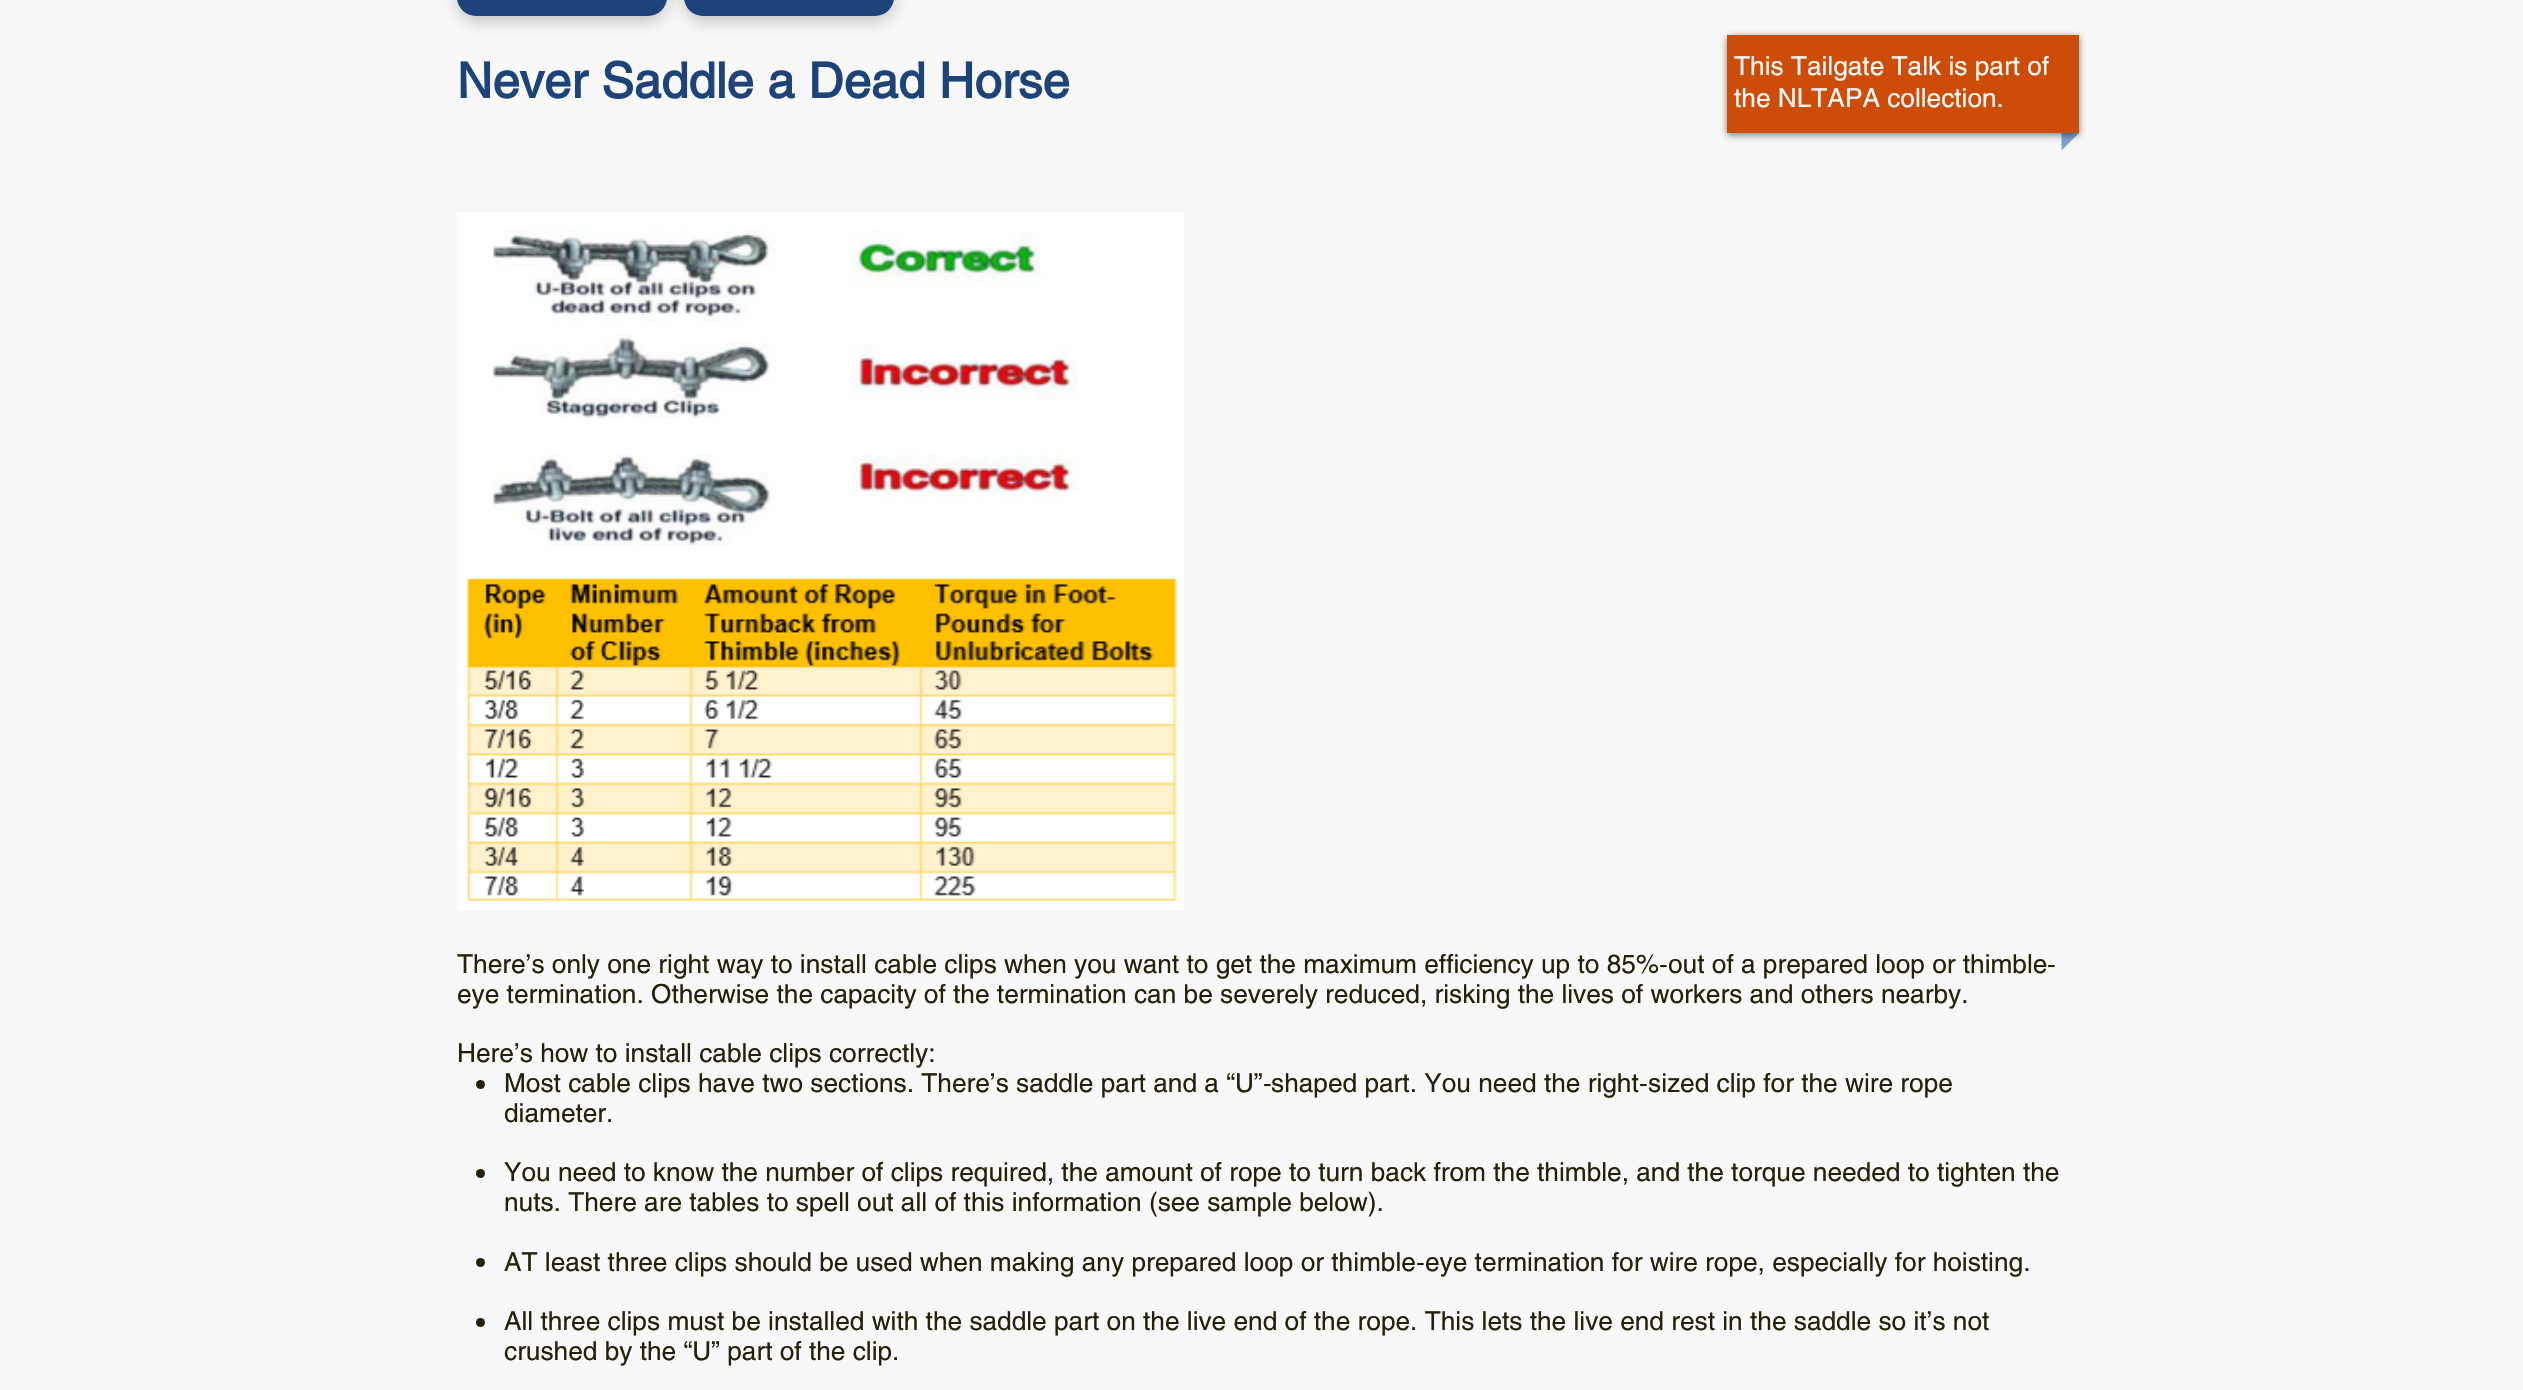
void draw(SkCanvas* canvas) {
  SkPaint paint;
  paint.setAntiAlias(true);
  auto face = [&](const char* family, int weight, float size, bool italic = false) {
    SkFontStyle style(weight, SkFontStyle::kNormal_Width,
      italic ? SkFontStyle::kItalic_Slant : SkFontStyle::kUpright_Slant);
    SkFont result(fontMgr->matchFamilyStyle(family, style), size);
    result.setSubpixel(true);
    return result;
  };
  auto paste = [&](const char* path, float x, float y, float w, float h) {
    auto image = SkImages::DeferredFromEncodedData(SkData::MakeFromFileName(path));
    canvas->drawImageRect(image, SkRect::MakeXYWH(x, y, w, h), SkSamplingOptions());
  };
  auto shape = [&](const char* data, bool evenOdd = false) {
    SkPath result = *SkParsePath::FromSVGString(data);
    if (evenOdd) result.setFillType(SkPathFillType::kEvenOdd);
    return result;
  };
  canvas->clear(0xfff8f8f8);
  paint.setColor(0x3b000000);
  paint.setMaskFilter(SkMaskFilter::MakeBlur(kNormal_SkBlurStyle, 8));
  canvas->drawRoundRect(SkRect::MakeXYWH(457, -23, 210, 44), 22, 22, paint);
  paint.setMaskFilter(nullptr);
  paint.setColor(0xff1d4379);
  canvas->drawRoundRect(SkRect::MakeXYWH(457, -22, 210, 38), 22, 22, paint);
  paint.setColor(0x3b000000);
  paint.setMaskFilter(SkMaskFilter::MakeBlur(kNormal_SkBlurStyle, 8));
  canvas->drawRoundRect(SkRect::MakeXYWH(684, -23, 210, 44), 22, 22, paint);
  paint.setMaskFilter(nullptr);
  paint.setColor(0xff1d4379);
  canvas->drawRoundRect(SkRect::MakeXYWH(684, -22, 210, 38), 22, 22, paint);
  paint.setColor(0xff80a0ce);
  canvas->drawPath(shape("M2061.5 133H2079L2061.5 150.5Z"), paint);
  paint.setColor(0x80000000);
  paint.setMaskFilter(SkMaskFilter::MakeBlur(kNormal_SkBlurStyle, 3.5f));
  canvas->drawRect(SkRect::MakeXYWH(1727, 37, 352, 98), paint);
  paint.setMaskFilter(nullptr);
  paint.setColor(0xffcd4c08);
  canvas->drawRect(SkRect::MakeXYWH(1727, 35, 352, 98), paint);
  paste("img/1.png", 457, 212, 727, 699);
  paint.setColor(0xff252008);
  canvas->drawCircle(480.5f, 1084.5f, 4.5f, paint);
  canvas->drawCircle(480.5f, 1173.5f, 4.5f, paint);
  canvas->drawCircle(480.5f, 1262.5f, 4.5f, paint);
  canvas->drawCircle(480.5f, 1322.5f, 4.5f, paint);
  auto f0 = face("helvetica", 700, 49);
  paint.setColor(0xff1d4379);
  canvas->drawString("Never Saddle a Dead Horse", 457, 98, f0, paint);
  auto f1 = face("helvetica", 400, 26.25f);
  paint.setColor(0xfff8f8f8);
  canvas->drawString("This Tailgate Talk is part of", 1734, 75, f1, paint);
  canvas->drawString("the NLTAPA collection.", 1734, 107, f1, paint);
  paint.setColor(0xff252008);
  canvas->drawString("There’s only one right way to install cable clips when you want to get the maximum efficiency up to 85%", 457, 973, f1, paint);
  auto f2 = face("Liberation Sans", 400, 26.25f);
  canvas->drawString("‐", 1659, 973, f2, paint);
  canvas->drawString("out of a prepared loop or thimble", 1668, 973, f1, paint);
  canvas->drawString("‐", 2047, 973, f2, paint);
  {
    const struct { const char* s; float x, y; } items[] = {
      {"eye termination. Otherwise the capacity of the termination can be severely reduced, risking the lives of workers and others nearby.", 457, 1003},
      {"Here’s how to install cable clips correctly:", 457, 1062},
      {"Most cable clips have two sections. There’s saddle part and a “U”", 504, 1092},
    };
    for (auto [s, x, y] : items) {
      canvas->drawString(s, x, y, f1, paint);
    }
  }
  canvas->drawString("‐", 1263, 1092, f2, paint);
  canvas->drawString("shaped part. You need the right", 1271, 1092, f1, paint);
  canvas->drawString("‐", 1639, 1092, f2, paint);
  {
    const struct { const char* s; float x, y; } items[] = {
      {"sized clip for the wire rope", 1648, 1092},
      {"diameter.", 504, 1122},
      {"You need to know the number of clips required, the amount of rope to turn back from the thimble, and the torque needed to tighten the", 504, 1181},
      {"nuts. There are tables to spell out all of this information (see sample below).", 504, 1211},
      {"AT least three clips should be used when making any prepared loop or thimble", 504, 1271},
    };
    for (auto [s, x, y] : items) {
      canvas->drawString(s, x, y, f1, paint);
    }
  }
  canvas->drawString("‐", 1416, 1271, f2, paint);
  {
    const struct { const char* s; float x, y; } items[] = {
      {"eye termination for wire rope, especially for hoisting.", 1425, 1271},
      {"All three clips must be installed with the saddle part on the live end of the rope. This lets the live end rest in the saddle so it’s not", 504, 1330},
      {"crushed by the “U” part of the clip.", 504, 1360},
    };
    for (auto [s, x, y] : items) {
      canvas->drawString(s, x, y, f1, paint);
    }
  }
}
